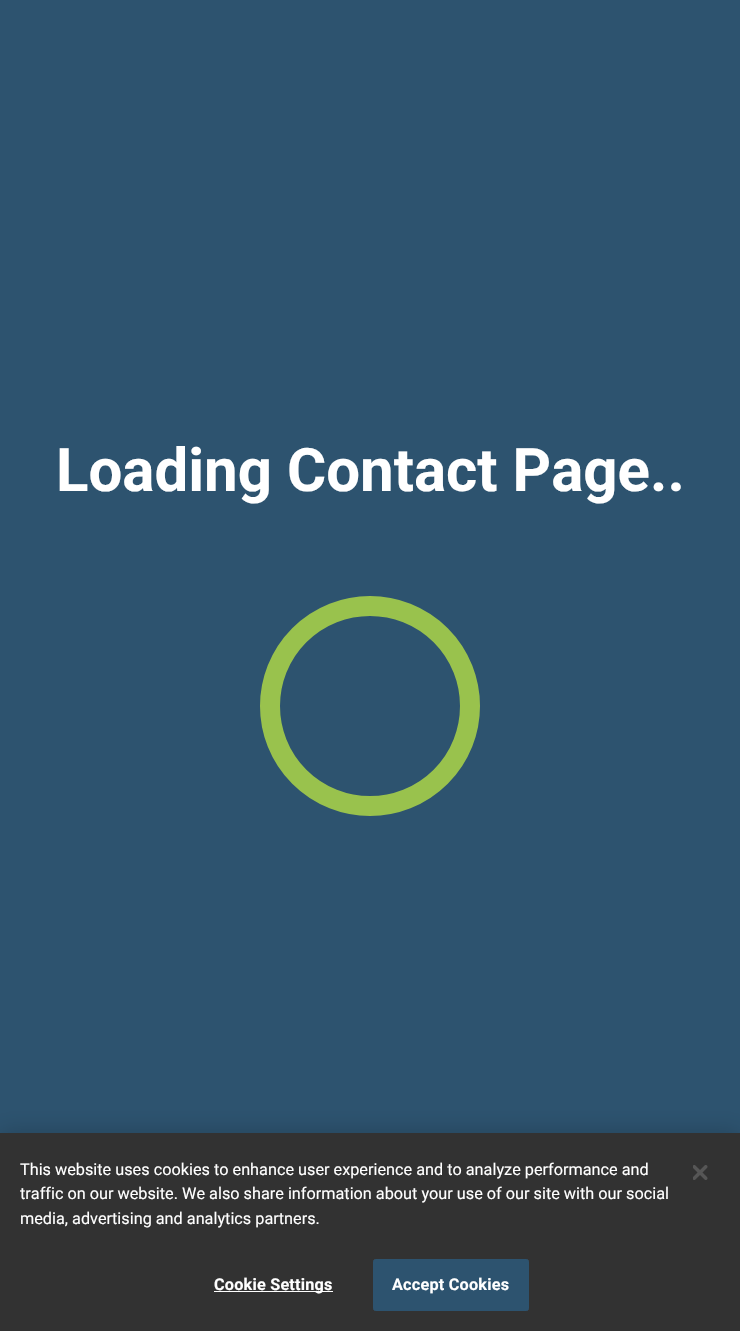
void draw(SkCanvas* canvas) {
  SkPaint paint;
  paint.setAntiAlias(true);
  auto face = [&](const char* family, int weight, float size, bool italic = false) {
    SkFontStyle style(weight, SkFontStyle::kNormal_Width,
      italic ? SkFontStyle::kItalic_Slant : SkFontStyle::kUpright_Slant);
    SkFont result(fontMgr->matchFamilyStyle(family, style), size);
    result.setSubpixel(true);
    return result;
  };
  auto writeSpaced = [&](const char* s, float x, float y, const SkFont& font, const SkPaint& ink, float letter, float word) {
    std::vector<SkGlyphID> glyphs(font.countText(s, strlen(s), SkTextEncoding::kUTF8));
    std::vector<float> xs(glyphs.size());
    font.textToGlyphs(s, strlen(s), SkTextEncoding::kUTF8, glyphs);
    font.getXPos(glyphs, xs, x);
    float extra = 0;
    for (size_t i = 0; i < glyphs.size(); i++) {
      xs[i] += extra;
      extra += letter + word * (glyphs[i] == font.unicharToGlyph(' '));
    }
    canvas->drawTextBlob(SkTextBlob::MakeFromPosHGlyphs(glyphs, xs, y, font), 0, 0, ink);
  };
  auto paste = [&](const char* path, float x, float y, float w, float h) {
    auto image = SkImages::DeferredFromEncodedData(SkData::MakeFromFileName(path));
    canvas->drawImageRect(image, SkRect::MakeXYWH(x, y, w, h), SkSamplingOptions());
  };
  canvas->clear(0xff2d536f);
  paint.setStroke(true);
  paint.setStrokeWidth(20);
  paint.setColor(0xff99c24d);
  canvas->drawCircle(370, 706, 100, paint);
  paint.setStroke(false);
  paint.setColor(0x33000000);
  paint.setMaskFilter(SkMaskFilter::MakeBlur(kNormal_SkBlurStyle, 11));
  canvas->drawRect(SkRect::MakeXYWH(0, 1133, 740, 198), paint);
  paint.setMaskFilter(nullptr);
  paint.setColor(0xff323232);
  canvas->drawRect(SkRect::MakeXYWH(0, 1133, 740, 198), paint);
  paint.setColor(0xffffffff);
  canvas->drawRect(SkRect::MakeXYWH(214, 1291, 119, 1), paint);
  paint.setColor(0xff2d536f);
  canvas->drawRoundRect(SkRect::MakeXYWH(373.5f, 1259.5f, 155, 51), 2, 2, paint);
  paint.setStroke(true);
  paint.setStrokeWidth(1);
  canvas->drawRoundRect(SkRect::MakeXYWH(373.5f, 1259.5f, 155, 51), 2, 2, paint);
  paste("img/1.png", 693, 1165, 15, 15);
  auto f0 = face("Roboto", 700, 60);
  paint.setStroke(false);
  paint.setColor(0xffffffff);
  canvas->drawString("Loading Contact Page..", 56, 491, f0, paint);
  auto f1 = face("Roboto", 400, 16.25f);
  {
    const struct { const char* s; float x, y; } items[] = {
      {"This website uses cookies to enhance user experience and to analyze performance and", 20, 1175},
      {"traffic on our website. We also share information about your use of our site with our social", 20, 1199},
      {"media, advertising and analytics partners.", 20, 1224},
    };
    for (auto [s, x, y] : items) {
      canvas->drawString(s, x, y, f1, paint);
    }
  }
  auto f2 = face("Roboto", 700, 16.25f);
  writeSpaced("Cookie Settings", 214, 1290, f2, paint, 0.2f, 0);
  writeSpaced("Accept Cookies", 392, 1290, f2, paint, 0.2f, 0);
}
